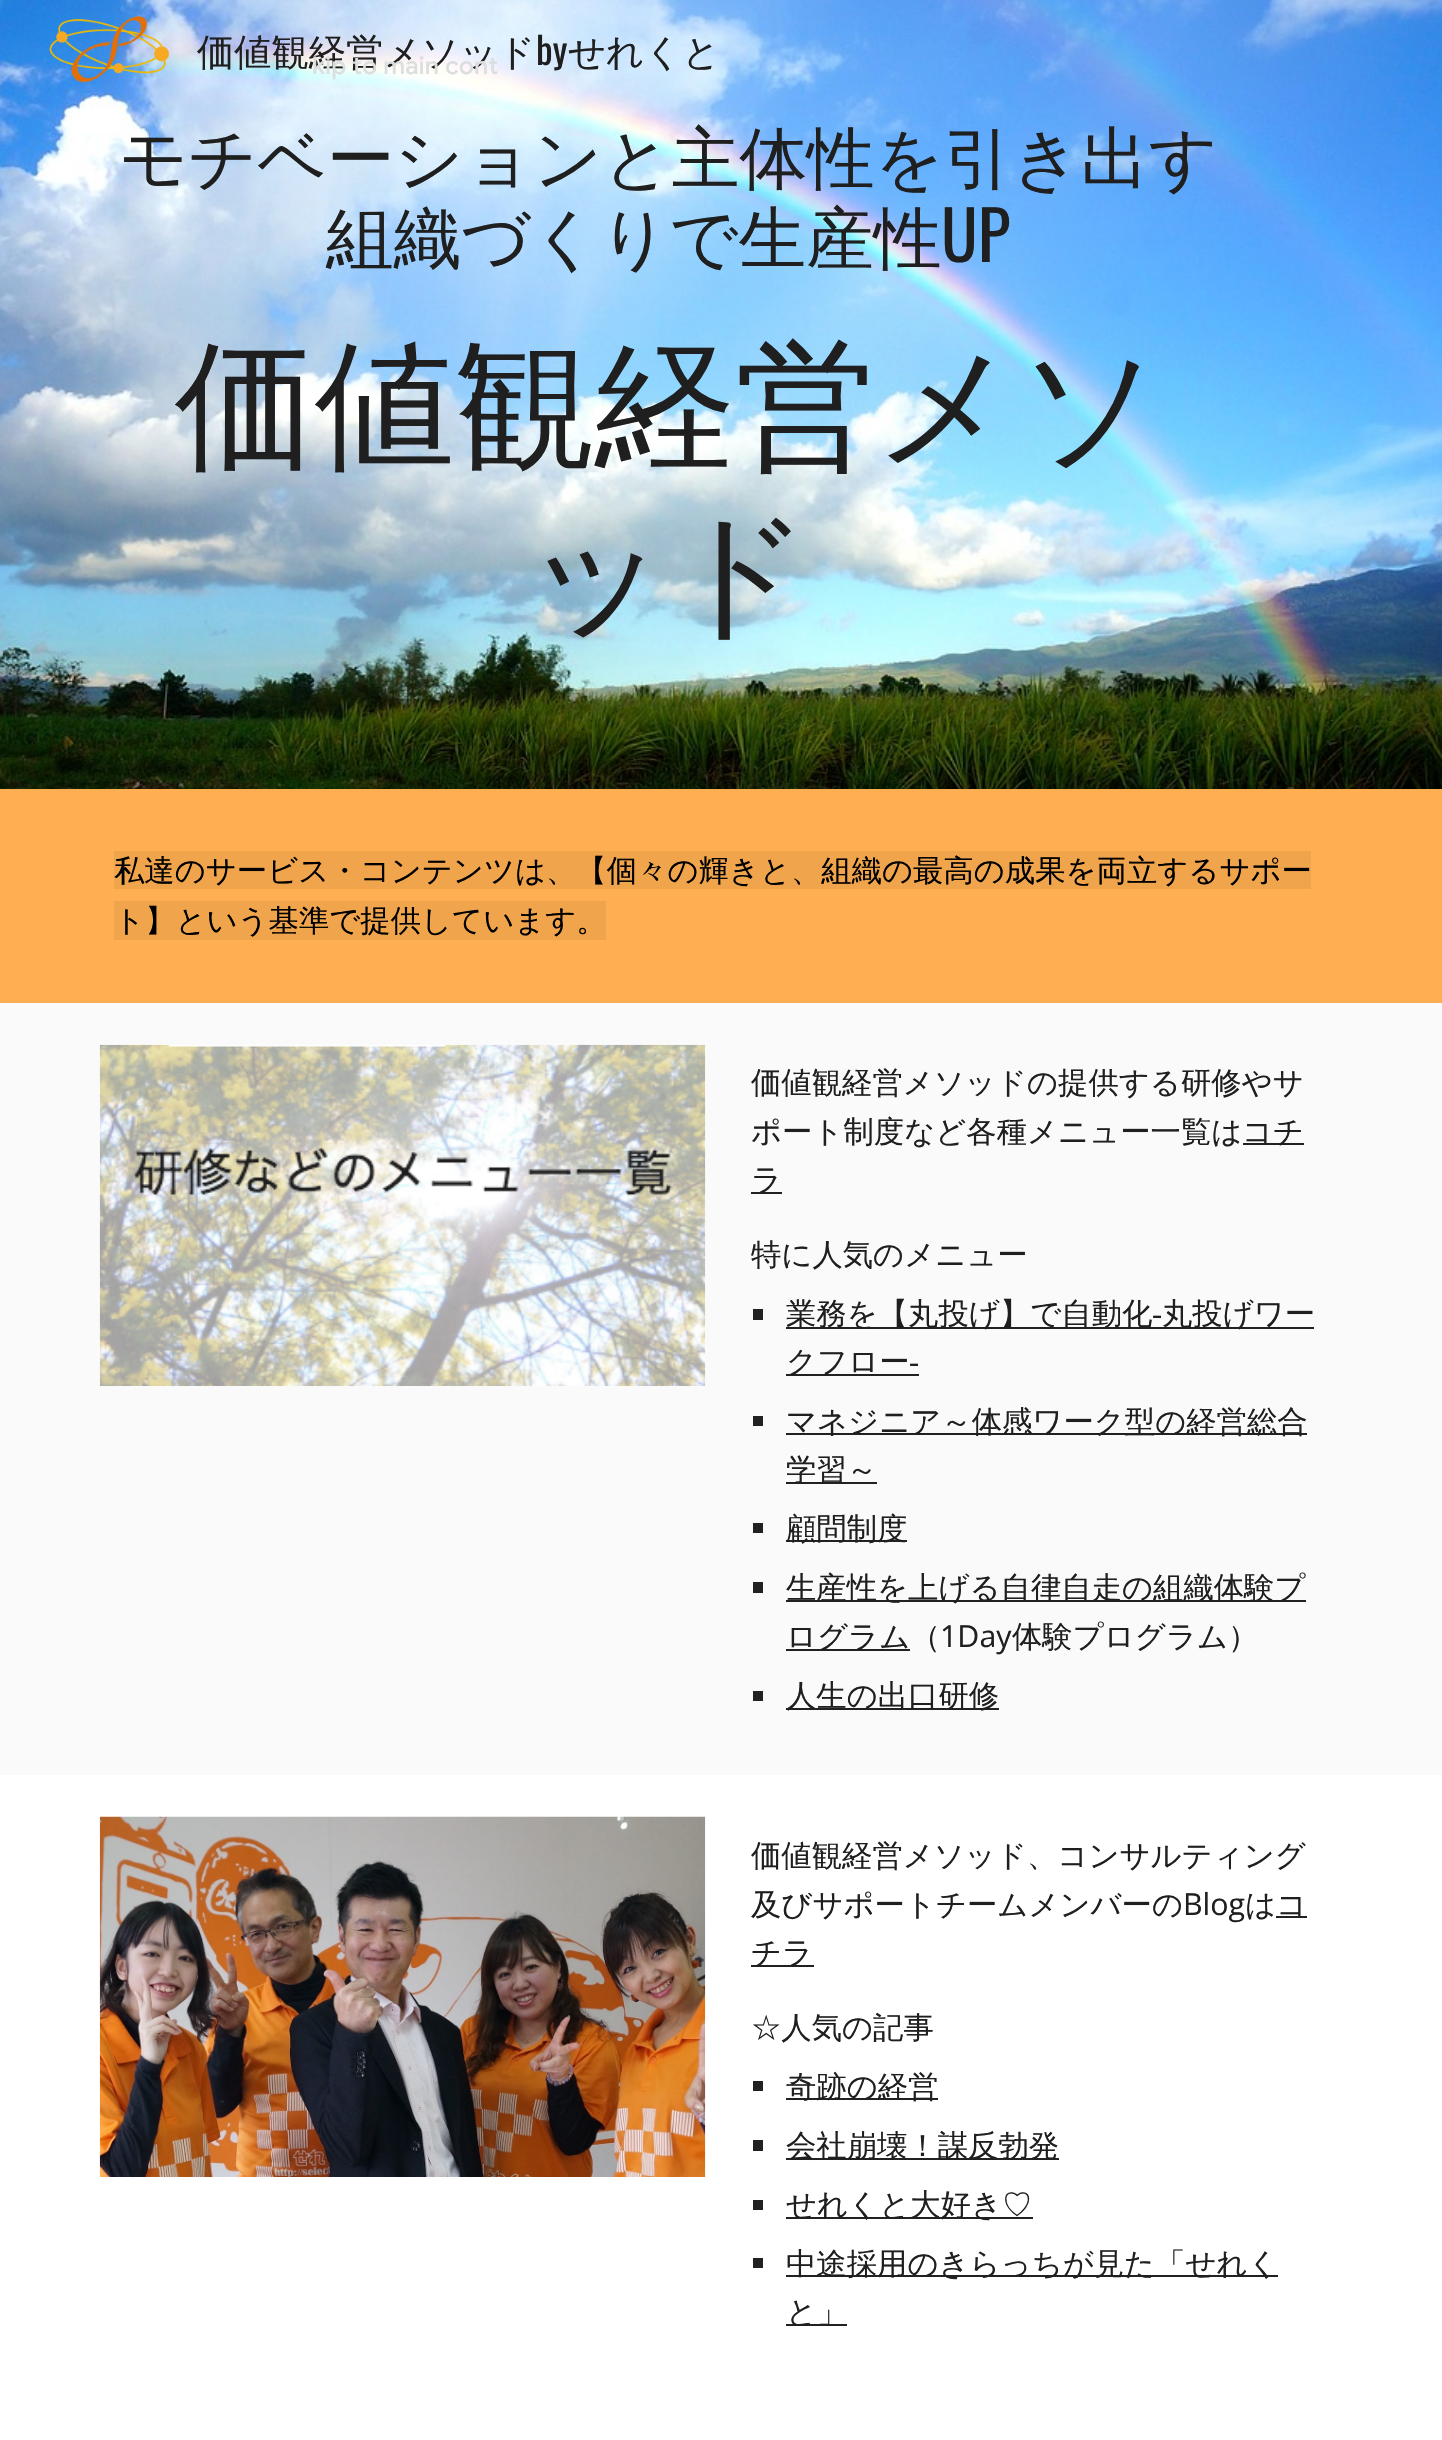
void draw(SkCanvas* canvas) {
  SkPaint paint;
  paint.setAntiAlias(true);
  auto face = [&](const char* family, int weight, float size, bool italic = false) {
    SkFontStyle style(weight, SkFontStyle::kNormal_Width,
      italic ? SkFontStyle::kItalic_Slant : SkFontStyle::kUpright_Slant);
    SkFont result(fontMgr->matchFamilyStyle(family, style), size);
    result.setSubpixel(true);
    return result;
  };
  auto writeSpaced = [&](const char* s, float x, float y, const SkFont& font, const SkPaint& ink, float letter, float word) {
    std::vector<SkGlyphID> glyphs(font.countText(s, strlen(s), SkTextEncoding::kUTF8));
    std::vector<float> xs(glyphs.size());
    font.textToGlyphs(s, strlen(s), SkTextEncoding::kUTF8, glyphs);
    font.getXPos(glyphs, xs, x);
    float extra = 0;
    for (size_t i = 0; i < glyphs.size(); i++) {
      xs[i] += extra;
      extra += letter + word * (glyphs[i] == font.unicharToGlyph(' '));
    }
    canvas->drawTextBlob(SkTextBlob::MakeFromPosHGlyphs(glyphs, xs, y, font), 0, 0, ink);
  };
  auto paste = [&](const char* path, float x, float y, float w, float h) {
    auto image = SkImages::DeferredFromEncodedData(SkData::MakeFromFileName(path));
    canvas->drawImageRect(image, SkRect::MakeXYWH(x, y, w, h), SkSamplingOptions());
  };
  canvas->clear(0xffffffff);
  paste("img/2.png", 0, 0, 1442, 789);
  paste("img/1.png", 49, 16, 120, 67);
  {
    const struct { float x, y, w, h; SkColor color; } items[] = {
      {0, 789, 1442, 214, 0xffffae51},
      {114, 851, 1197, 38, 0xfff0a44c},
      {114, 901, 492, 39, 0xfff0a44c},
      {0, 1003, 1442, 772, 0xfffafafa},
    };
    for (auto [x, y, w, h, color] : items) {
      paint.setColor(color);
      canvas->drawRect(SkRect::MakeXYWH(x, y, w, h), paint);
    }
  }
  paste("img/3.png", 99, 1044, 607, 342);
  {
    const struct { float x, y, w, h; SkColor color; } items[] = {
      {1243, 1143, 61, 2, 0xff212121},
      {751, 1192, 31, 2, 0xff212121},
      {753, 1309, 10, 11, 0xff212121},
      {786, 1327, 528, 2, 0xff212121},
      {786, 1374, 133, 2, 0xff212121},
      {753, 1416, 10, 10, 0xff212121},
      {786, 1433, 521, 2, 0xff212121},
      {786, 1482, 91, 2, 0xff212121},
      {753, 1523, 10, 10, 0xff212121},
      {786, 1540, 121, 2, 0xff212121},
      {753, 1582, 10, 11, 0xff212121},
      {786, 1600, 520, 2, 0xff212121},
      {786, 1649, 124, 2, 0xff212121},
      {753, 1691, 10, 10, 0xff212121},
      {786, 1708, 213, 2, 0xff212121},
    };
    for (auto [x, y, w, h, color] : items) {
      paint.setColor(color);
      canvas->drawRect(SkRect::MakeXYWH(x, y, w, h), paint);
    }
  }
  paste("img/4.png", 99, 1816, 607, 361);
  {
    const struct { float x, y, w, h; SkColor color; } items[] = {
      {751, 1965, 63, 2, 0xff212121},
      {753, 2081, 10, 10, 0xff212121},
      {786, 2098, 152, 2, 0xff212121},
      {753, 2140, 10, 11, 0xff212121},
      {786, 2158, 273, 2, 0xff212121},
      {753, 2200, 10, 10, 0xff212121},
      {786, 2217, 247, 2, 0xff212121},
      {753, 2258, 10, 10, 0xff212121},
      {786, 2275, 492, 2, 0xff212121},
      {786, 2324, 61, 2, 0xff212121},
    };
    for (auto [x, y, w, h, color] : items) {
      paint.setColor(color);
      canvas->drawRect(SkRect::MakeXYWH(x, y, w, h), paint);
    }
  }
  auto f0 = face("WenQuanYi Zen Hei", 500, 37.25f);
  paint.setColor(0xff1f1f1f);
  canvas->drawString("価値観経営メソッド", 197, 65, f0, paint);
  auto f1 = face("Oswald", 400, 37.25f);
  canvas->drawString("by", 536, 65, f1, paint);
  canvas->drawString("せれくと", 568, 65, f0, paint);
  auto f2 = face("WenQuanYi Zen Hei", 500, 67.7f);
  canvas->drawString("モチベーションと主体性を引き出す", 119, 182, f2, paint);
  canvas->drawString("組織づくりで生産性", 326, 262, f2, paint);
  auto f3 = face("Oswald", 400, 67.7f);
  canvas->drawString("UP", 941, 262, f3, paint);
  auto f4 = face("WenQuanYi Zen Hei", 500, 140);
  canvas->drawString("価値観経営メソ", 175, 454, f4, paint);
  canvas->drawString("ッド", 525, 622, f4, paint);
  auto f5 = face("WenQuanYi Zen Hei", 500, 30.35f);
  paint.setColor(0xff000000);
  canvas->drawString("私達のサービス・コンテンツは、【個々の輝きと、組織の最高の成果を両立するサポー", 114, 881, f5, paint);
  canvas->drawString("ト】という基準で提供しています。", 114, 931, f5, paint);
  paint.setColor(0xff1f1f1f);
  {
    const struct { const char* s; float x, y; } items[] = {
      {"価値観経営メソッドの提供する研修やサ", 751, 1093},
      {"ポート制度など各種メニュー一覧は", 751, 1142},
      {"コチ", 1242, 1142},
      {"ラ", 751, 1190},
      {"特に人気のメニュー", 751, 1265},
      {"業務を【丸投げ】で自動化", 786, 1324},
    };
    for (auto [s, x, y] : items) {
      canvas->drawString(s, x, y, f5, paint);
    }
  }
  auto f6 = face("Liberation Serif", 400, 30.35f);
  canvas->drawString("‐", 1152, 1324, f6, paint);
  canvas->drawString("丸投げワー", 1162, 1324, f5, paint);
  canvas->drawString("クフロー", 786, 1372, f5, paint);
  canvas->drawString("‐", 909, 1372, f6, paint);
  {
    const struct { const char* s; float x, y; } items[] = {
      {"マネジニア～体感ワーク型の経営総合", 786, 1432},
      {"学習～", 786, 1480},
      {"顧問制度", 786, 1539},
      {"生産性を上げる自律自走の組織体験プ", 786, 1598},
      {"ログラム（", 786, 1647},
    };
    for (auto [s, x, y] : items) {
      canvas->drawString(s, x, y, f5, paint);
    }
  }
  auto f7 = face("Open Sans", 400, 30.35f);
  canvas->drawString("1Day", 940, 1647, f7, paint);
  {
    const struct { const char* s; float x, y; } items[] = {
      {"体験プログラム）", 1012, 1647},
      {"人生の出口研修", 786, 1706},
      {"価値観経営メソッド、コンサルティング", 751, 1866},
      {"及びサポートチームメンバーの", 751, 1915},
    };
    for (auto [s, x, y] : items) {
      canvas->drawString(s, x, y, f5, paint);
    }
  }
  canvas->drawString("Blog", 1183, 1915, f7, paint);
  canvas->drawString("はコ", 1245, 1915, f5, paint);
  canvas->drawString("チラ", 751, 1963, f5, paint);
  paint.setColor(0xff212121);
  canvas->drawRect(SkRect::MakeXYWH(1276, 1916, 31, 2), paint);
  paint.setColor(0xff1f1f1f);
  {
    const struct { const char* s; float x, y; } items[] = {
      {"☆人気の記事", 751, 2038},
      {"奇跡の経営", 786, 2097},
      {"会社崩壊！謀反勃発", 786, 2156},
      {"せれくと大好き♡", 786, 2215},
      {"中途採用のきらっちが見た「せれく", 786, 2274},
      {"と」", 786, 2322},
    };
    for (auto [s, x, y] : items) {
      canvas->drawString(s, x, y, f5, paint);
    }
  }
  auto f8 = face("Google Sans", 500, 24.5f);
  paint.setColor(0xffdcdfe0);
  writeSpaced("kip to main cont", 312, 74, f8, paint, 0.25f, 0);
}
